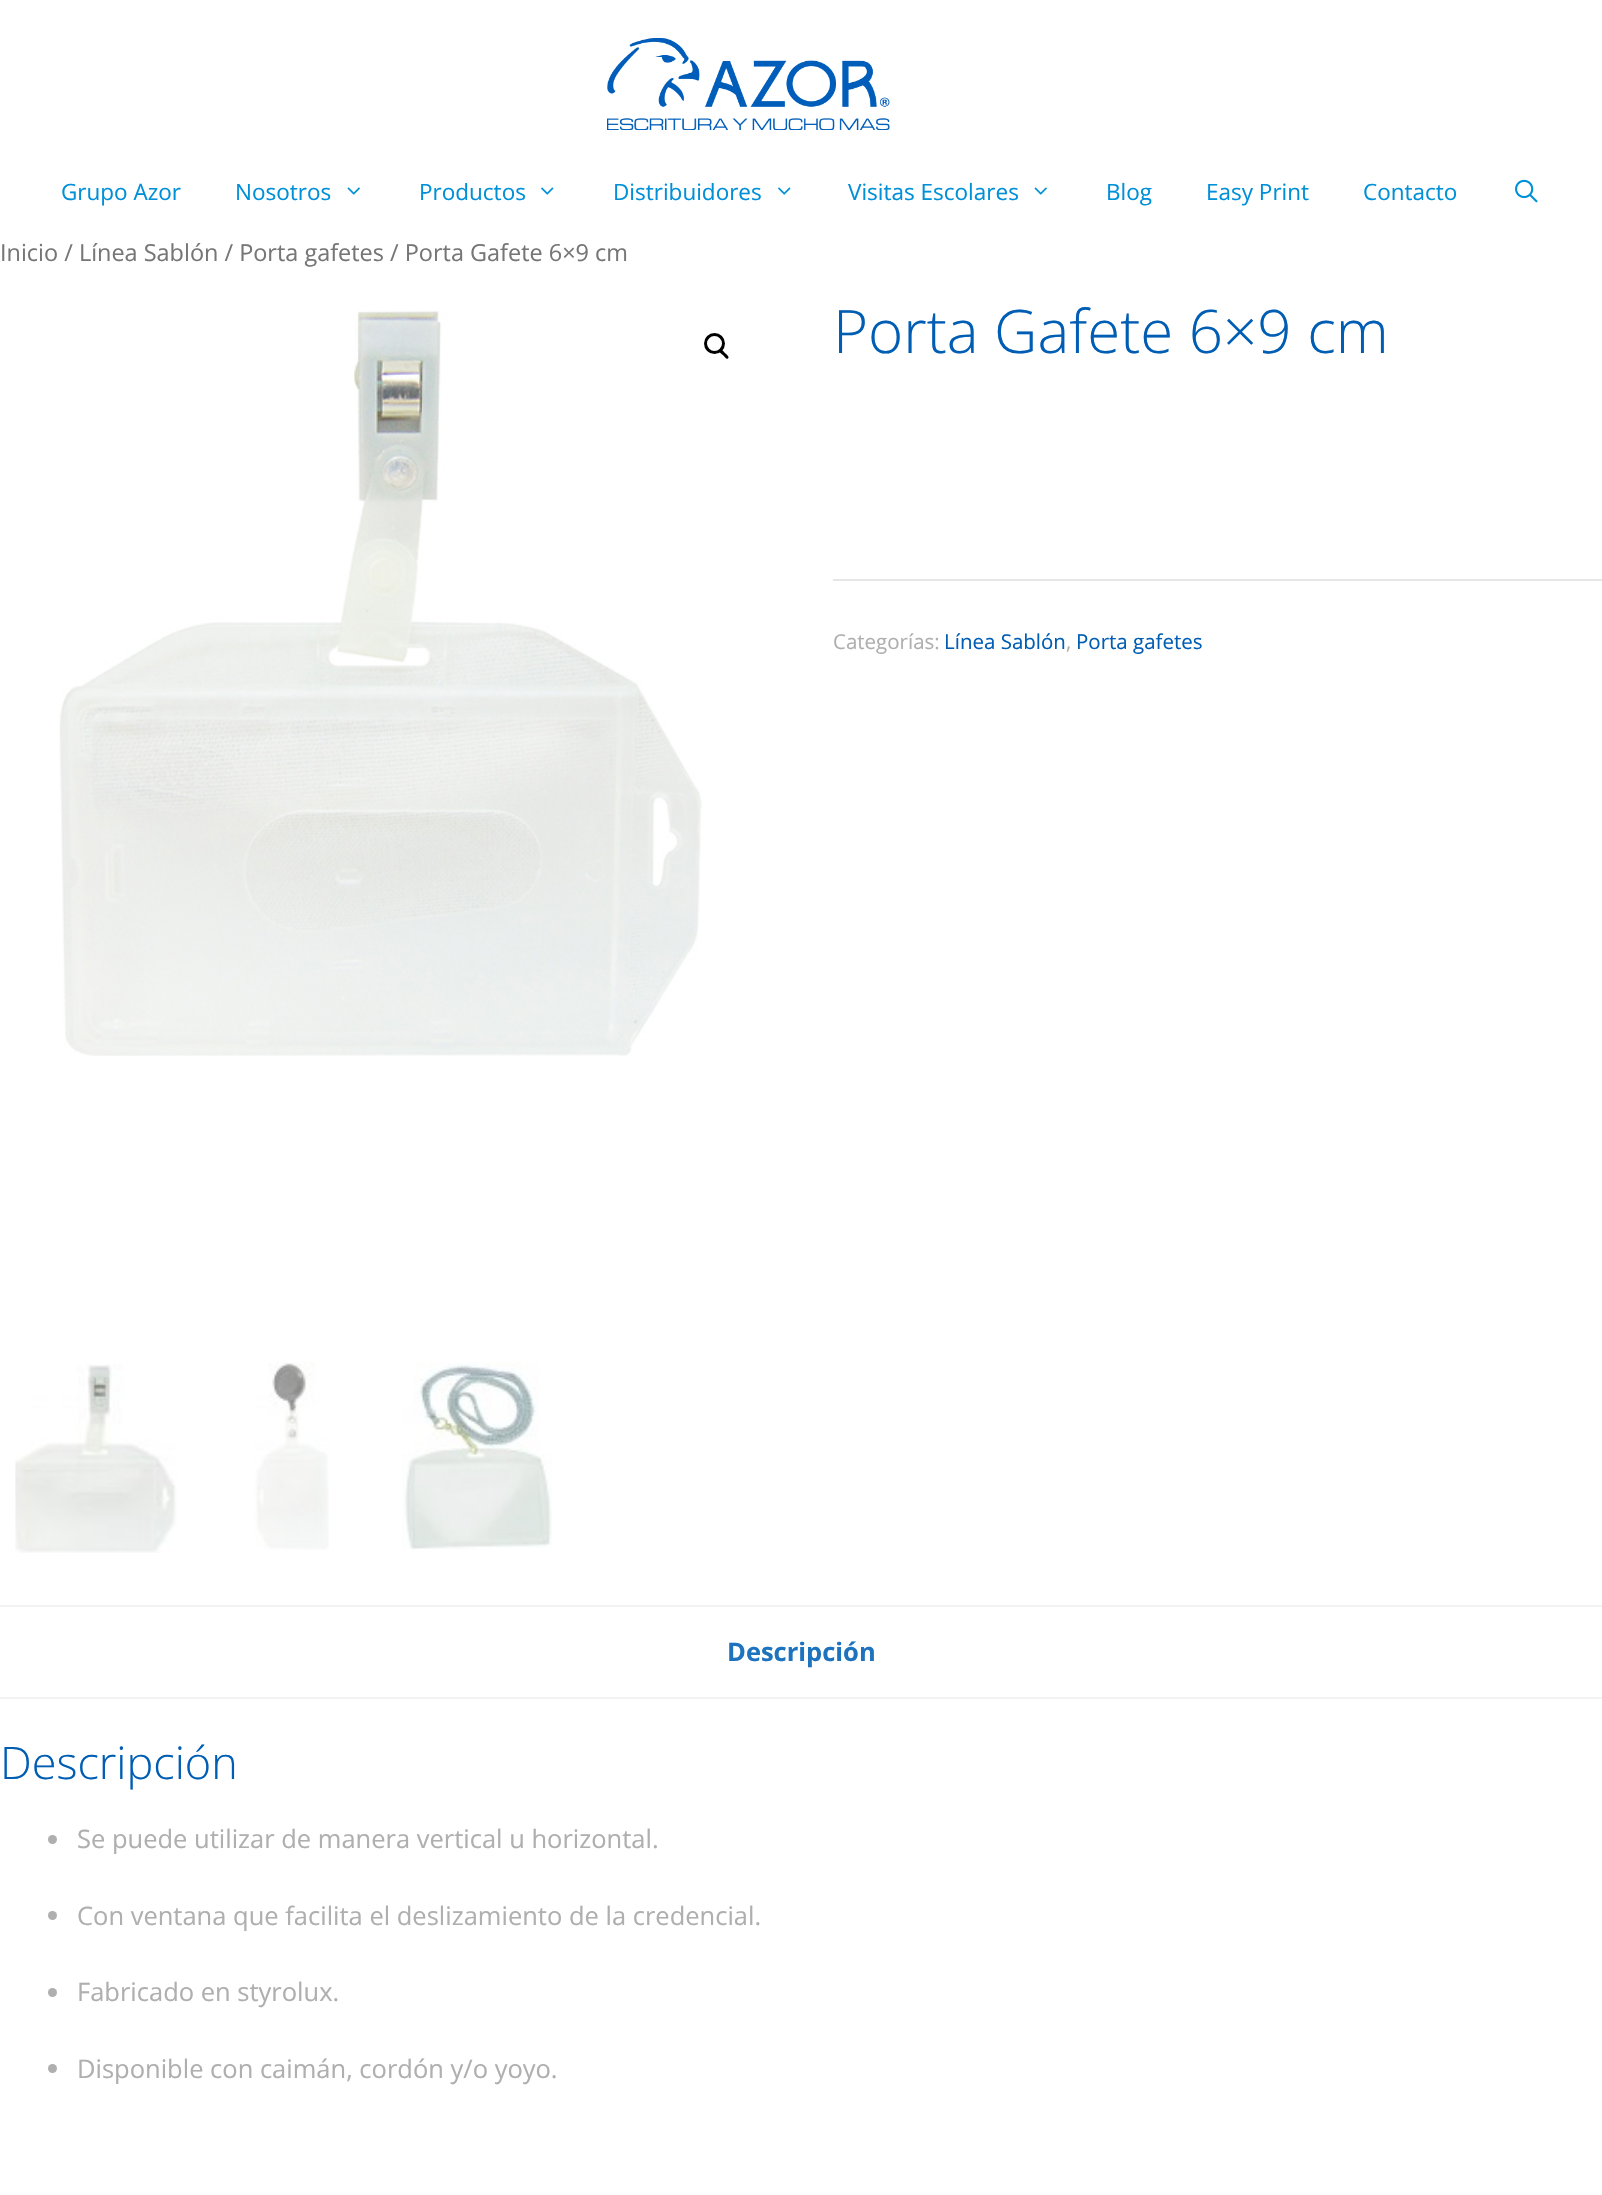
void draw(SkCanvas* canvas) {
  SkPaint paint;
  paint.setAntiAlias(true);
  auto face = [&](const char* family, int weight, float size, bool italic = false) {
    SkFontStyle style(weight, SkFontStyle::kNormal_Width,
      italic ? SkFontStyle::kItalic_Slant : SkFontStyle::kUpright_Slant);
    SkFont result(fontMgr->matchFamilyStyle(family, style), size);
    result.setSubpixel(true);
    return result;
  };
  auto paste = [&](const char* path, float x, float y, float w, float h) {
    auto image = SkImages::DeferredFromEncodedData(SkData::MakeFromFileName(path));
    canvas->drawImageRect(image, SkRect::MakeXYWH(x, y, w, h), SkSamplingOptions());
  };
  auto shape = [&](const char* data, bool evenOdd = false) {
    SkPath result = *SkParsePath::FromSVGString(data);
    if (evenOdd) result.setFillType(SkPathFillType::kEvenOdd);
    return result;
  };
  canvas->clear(0xffffffff);
  paste("img/1.png", 607, 38, 283, 92);
  paste("img/2.png", 347, 187, 13, 8);
  paste("img/3.png", 541, 187, 13, 8);
  paste("img/3.png", 778, 187, 13, 8);
  paste("img/2.png", 1034, 187, 13, 8);
  paste("img/4.png", 1515, 179, 23, 24);
  paste("img/5.png", 59, 310, 643, 746);
  paint.setStroke(true);
  paint.setStrokeWidth(3);
  paint.setColor(0xff000000);
  canvas->drawCircle(714.5f, 343.5f, 9, paint);
  paint.setStroke(false);
  canvas->drawPath(shape("M719.5 350C721.5 348 724 352 725 353C726 354 730 356.5 728 358.5C726.5 360 724 356 723 355C722 354.5 718 351.5 719.5 350Z"), paint);
  paste("img/6.png", 15, 1364, 162, 189);
  paste("img/7.png", 254, 1362, 75, 188);
  paste("img/8.png", 402, 1362, 150, 188);
  {
    const struct { float x, y, w, h; SkColor color; } items[] = {
      {833, 579, 769, 2, 0xffe6e6e6},
      {0, 1605, 1602, 2, 0xfff2f2f2},
      {0, 1697, 1602, 2, 0xfff2f2f2},
    };
    for (auto [x, y, w, h, color] : items) {
      paint.setColor(color);
      canvas->drawRect(SkRect::MakeXYWH(x, y, w, h), paint);
    }
  }
  paint.setColor(0xffafafaf);
  canvas->drawCircle(52.5f, 1839.5f, 4.5f, paint);
  canvas->drawCircle(52.5f, 1915.5f, 4.5f, paint);
  canvas->drawCircle(52.5f, 1992.5f, 4.5f, paint);
  canvas->drawCircle(52.5f, 2068.5f, 4.5f, paint);
  auto f0 = face("Open Sans", 400, 22.5f);
  paint.setColor(0xff0090d8);
  {
    const struct { const char* s; float x, y; } items[] = {
      {"Grupo Azor", 61, 200},
      {"Nosotros", 235, 200},
      {"Productos", 419, 200},
      {"Distribuidores", 613, 200},
      {"Visitas Escolares", 848, 200},
      {"Blog", 1106, 200},
      {"Easy Print", 1206, 200},
      {"Contacto", 1363, 200},
    };
    for (auto [s, x, y] : items) {
      canvas->drawString(s, x, y, f0, paint);
    }
  }
  auto f1 = face("Open Sans", 400, 23.45f);
  paint.setColor(0xff767676);
  canvas->drawString("Inicio / Línea Sablón / Porta gafetes / Porta Gafete 6×9 cm", 0, 261, f1, paint);
  auto f2 = face("Open Sans", 300, 60);
  paint.setColor(0xff005db4);
  canvas->drawString("Porta Gafete 6×9 cm", 833, 353, f2, paint);
  auto f3 = face("Open Sans", 400, 20.5f);
  paint.setColor(0xffafafaf);
  canvas->drawString("Categorías:", 833, 649, f3, paint);
  paint.setColor(0xff005db4);
  canvas->drawString("Línea Sablón", 944, 649, f3, paint);
  paint.setColor(0xffafafaf);
  canvas->drawString(",", 1066, 649, f3, paint);
  paint.setColor(0xff005db4);
  canvas->drawString("Porta gafetes", 1076, 649, f3, paint);
  auto f4 = face("Open Sans", 700, 25.5f);
  paint.setColor(0xff1e73be);
  canvas->drawString("Descripción", 727, 1661, f4, paint);
  auto f5 = face("Open Sans", 300, 45);
  paint.setColor(0xff005db4);
  canvas->drawString("Descripción", 0, 1779, f5, paint);
  auto f6 = face("Open Sans", 400, 25.5f);
  paint.setColor(0xffafafaf);
  {
    const struct { const char* s; float x, y; } items[] = {
      {"Se puede utilizar de manera vertical u horizontal.", 77, 1848},
      {"Con ventana que facilita el deslizamiento de la credencial.", 77, 1925},
      {"Fabricado en styrolux.", 77, 2001},
      {"Disponible con caimán, cordón y/o yoyo.", 77, 2078},
    };
    for (auto [s, x, y] : items) {
      canvas->drawString(s, x, y, f6, paint);
    }
  }
}
